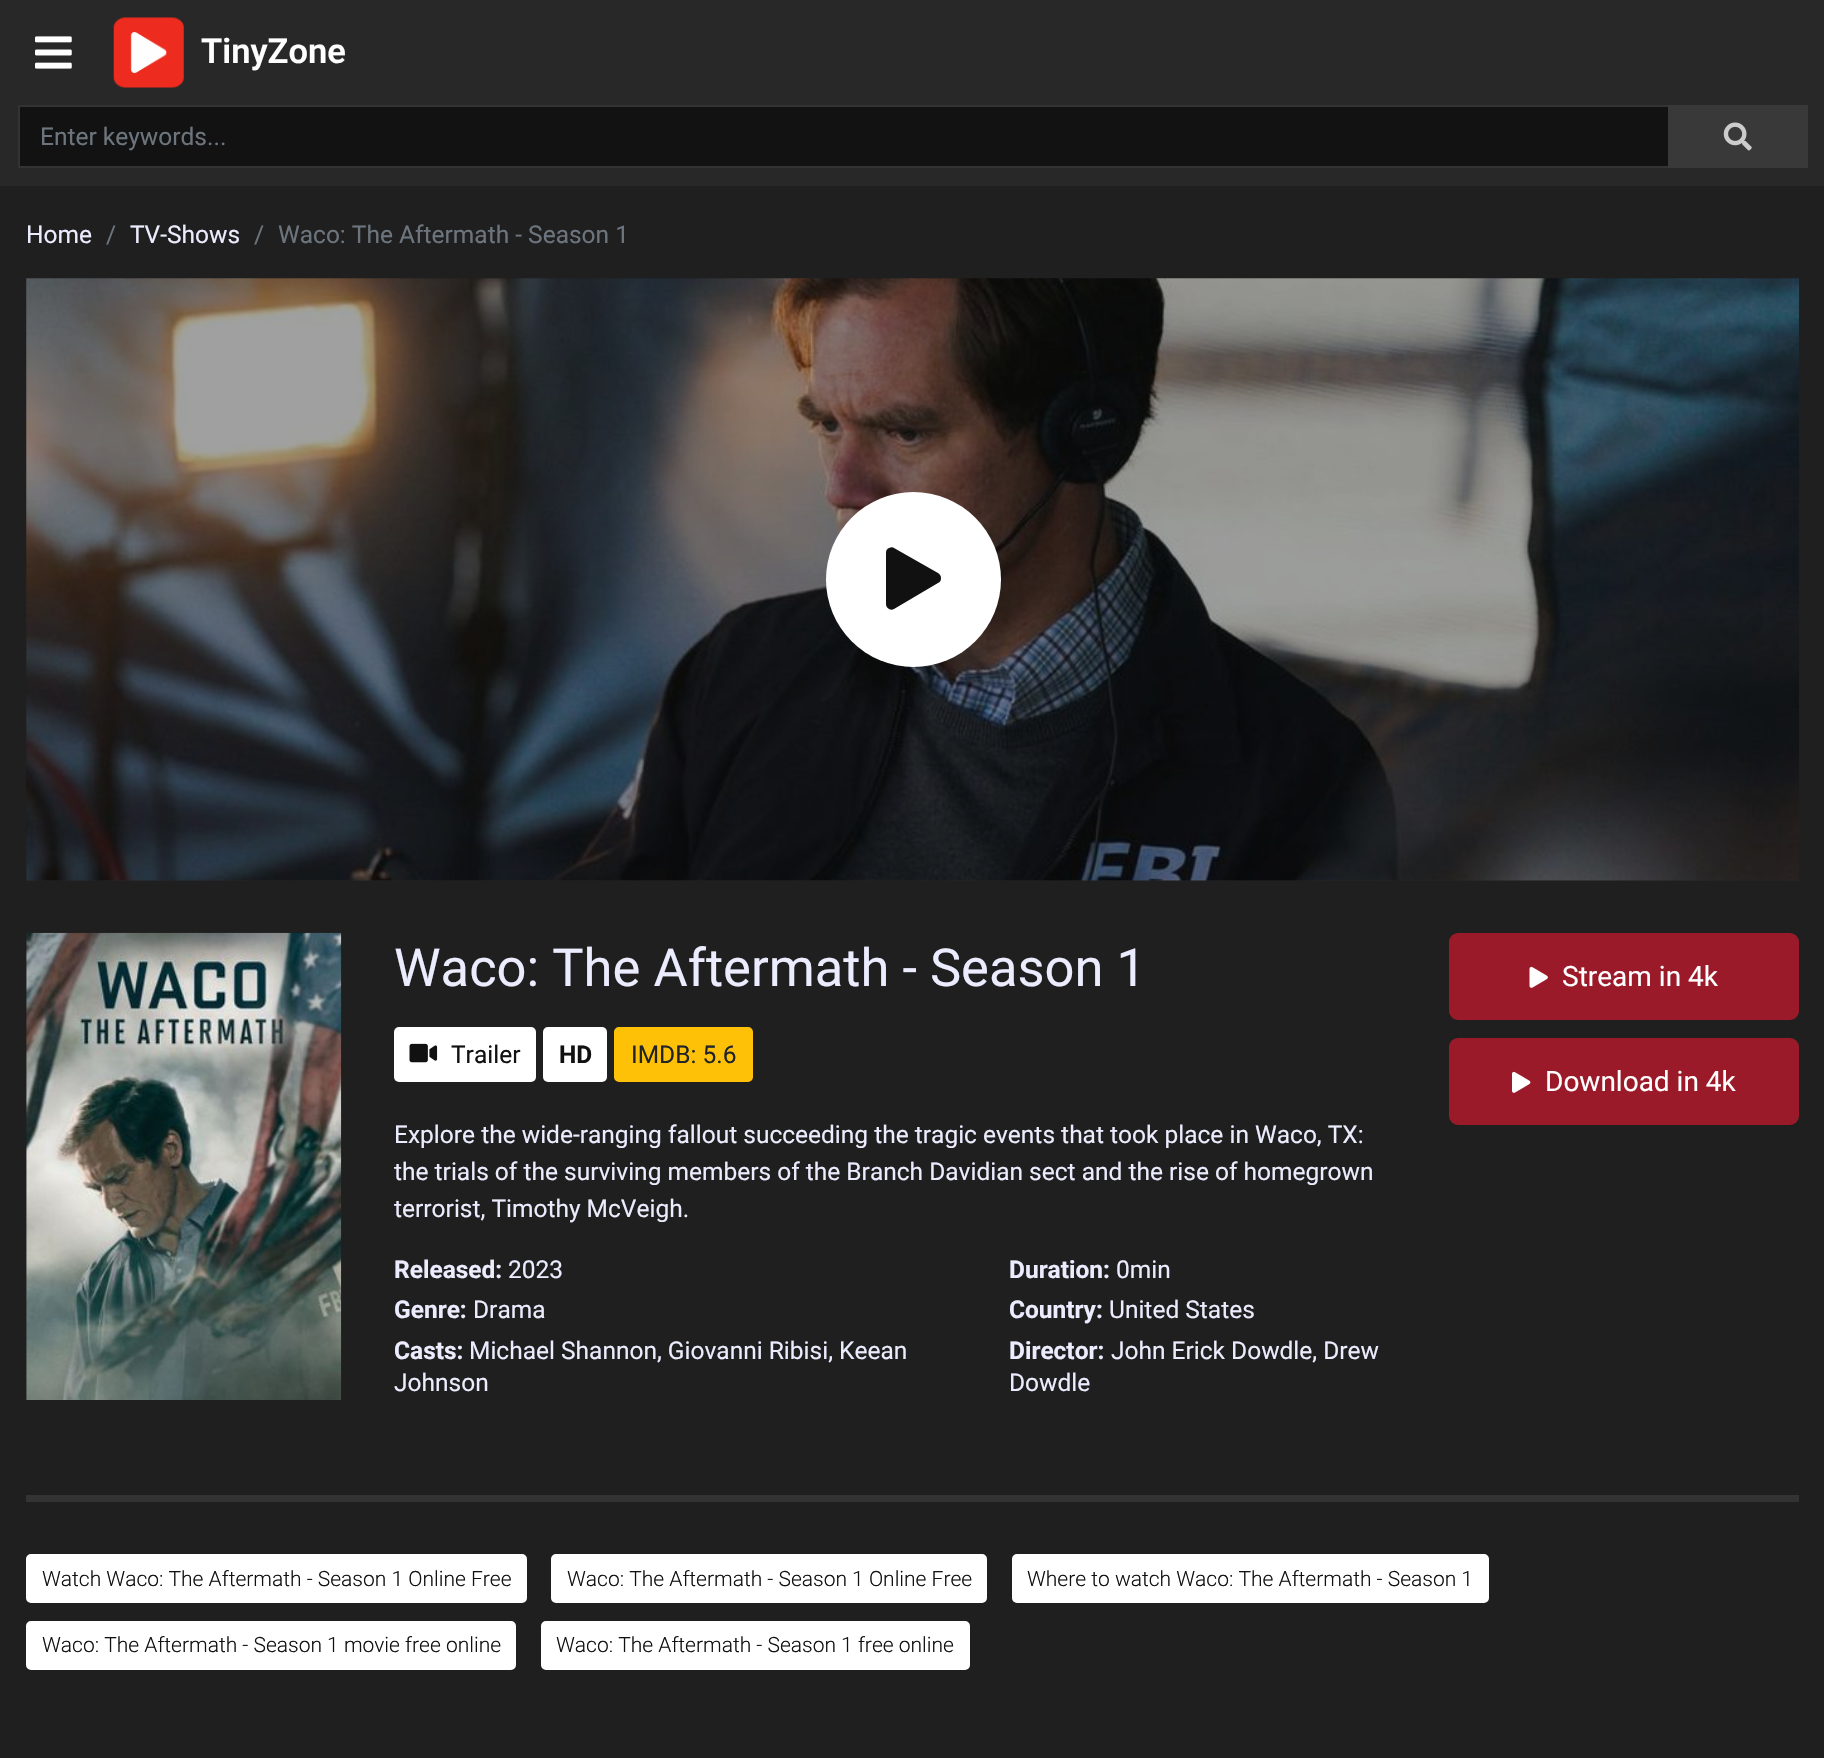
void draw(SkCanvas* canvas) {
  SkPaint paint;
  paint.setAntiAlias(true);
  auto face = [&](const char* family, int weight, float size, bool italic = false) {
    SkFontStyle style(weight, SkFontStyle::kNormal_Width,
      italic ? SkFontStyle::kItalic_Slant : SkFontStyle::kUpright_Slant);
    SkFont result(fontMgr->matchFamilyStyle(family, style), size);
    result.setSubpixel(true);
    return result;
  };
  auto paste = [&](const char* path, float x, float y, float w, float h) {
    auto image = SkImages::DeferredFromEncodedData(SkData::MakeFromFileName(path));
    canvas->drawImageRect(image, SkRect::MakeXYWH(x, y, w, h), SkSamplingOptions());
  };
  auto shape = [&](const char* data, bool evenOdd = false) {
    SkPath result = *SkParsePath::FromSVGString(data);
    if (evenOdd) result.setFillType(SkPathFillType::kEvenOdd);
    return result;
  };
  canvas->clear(0xff1f1f1f);
  paint.setColor(0xff1a1a1a);
  canvas->drawRect(SkRect::MakeXYWH(26, 278, 1773, 602), paint);
  paint.setColor(0xff282828);
  canvas->drawRect(SkRect::MakeXYWH(0, 0, 1824, 186), paint);
  paste("img/1.png", 35, 36, 37, 33);
  paste("img/2.png", 113, 17, 71, 71);
  paint.setColor(0xff121212);
  canvas->drawRect(SkRect::MakeXYWH(20, 107, 1648, 59), paint);
  paint.setStroke(true);
  paint.setStrokeWidth(2);
  paint.setColor(0xff333333);
  canvas->drawRect(SkRect::MakeXYWH(19, 106, 1788, 61), paint);
  paint.setStroke(false);
  paint.setColor(0xff393939);
  canvas->drawRect(SkRect::MakeXYWH(1668, 105, 140, 63), paint);
  paste("img/3.png", 1723, 122, 29, 29);
  paste("img/4.png", 26, 278, 1773, 603);
  paint.setColor(0xffffffff);
  canvas->drawCircle(913.5f, 579.5f, 87.5f, paint);
  paint.setColor(0xff111111);
  canvas->drawPath(shape("M938 573C940 574 941 576 941 578C941 581 940 582 938 583L894 609C892 610 891 610 889 609C887 608 886 606 886 604V553C886 550 887 549 889 548C891 547 893 547 894 548Z"), paint);
  paint.setColor(0xff333333);
  canvas->drawRect(SkRect::MakeXYWH(26, 1495, 1773, 7), paint);
  paste("img/5.png", 26, 932, 316, 468);
  paint.setColor(0xff9b1a29);
  canvas->drawRoundRect(SkRect::MakeXYWH(1450, 934, 348, 85), 8, 8, paint);
  paint.setStroke(true);
  canvas->drawRoundRect(SkRect::MakeXYWH(1450, 934, 348, 85), 8, 8, paint);
  paste("img/6.png", 1529, 966, 19, 22);
  paint.setStroke(false);
  canvas->drawRoundRect(SkRect::MakeXYWH(1450, 1039, 348, 85), 8, 8, paint);
  paint.setStroke(true);
  canvas->drawRoundRect(SkRect::MakeXYWH(1450, 1039, 348, 85), 8, 8, paint);
  paste("img/7.png", 1512, 1071, 19, 22);
  paint.setStroke(false);
  paint.setColor(0xffffffff);
  canvas->drawRoundRect(SkRect::MakeXYWH(394, 1027, 142, 55), 5, 5, paint);
  paste("img/8.png", 409, 1043, 29, 20);
  canvas->drawRoundRect(SkRect::MakeXYWH(543, 1027, 64, 55), 5, 5, paint);
  paint.setColor(0xffffc107);
  canvas->drawRoundRect(SkRect::MakeXYWH(615, 1028, 137, 53), 4, 4, paint);
  paint.setStroke(true);
  canvas->drawRoundRect(SkRect::MakeXYWH(615, 1028, 137, 53), 4, 4, paint);
  paint.setStroke(false);
  paint.setColor(0xffffffff);
  canvas->drawRoundRect(SkRect::MakeXYWH(27, 1555, 499, 47), 4, 4, paint);
  paint.setStroke(true);
  canvas->drawRoundRect(SkRect::MakeXYWH(27, 1555, 499, 47), 4, 4, paint);
  paint.setStroke(false);
  canvas->drawRoundRect(SkRect::MakeXYWH(552, 1555, 434, 47), 4, 4, paint);
  paint.setStroke(true);
  canvas->drawRoundRect(SkRect::MakeXYWH(552, 1555, 434, 47), 4, 4, paint);
  paint.setStroke(false);
  canvas->drawRoundRect(SkRect::MakeXYWH(1013, 1555, 475, 47), 4, 4, paint);
  paint.setStroke(true);
  canvas->drawRoundRect(SkRect::MakeXYWH(1013, 1555, 475, 47), 4, 4, paint);
  paint.setStroke(false);
  canvas->drawRoundRect(SkRect::MakeXYWH(27, 1622, 488, 47), 4, 4, paint);
  paint.setStroke(true);
  canvas->drawRoundRect(SkRect::MakeXYWH(27, 1622, 488, 47), 4, 4, paint);
  paint.setStroke(false);
  canvas->drawRoundRect(SkRect::MakeXYWH(542, 1622, 427, 47), 4, 4, paint);
  paint.setStroke(true);
  canvas->drawRoundRect(SkRect::MakeXYWH(542, 1622, 427, 47), 4, 4, paint);
  auto f0 = face("Roboto", 600, 34.5f);
  paint.setStroke(false);
  canvas->drawString("TinyZone", 201, 63, f0, paint);
  auto f1 = face("Roboto", 400, 24.5f);
  paint.setColor(0xff6c757d);
  canvas->drawString("Enter keywords...", 40, 145, f1, paint);
  paint.setColor(0xffececff);
  canvas->drawString("Home", 26, 243, f1, paint);
  paint.setColor(0xff6c757d);
  canvas->drawString("/", 106, 243, f1, paint);
  paint.setColor(0xffececff);
  canvas->drawString("TV-Shows", 130, 243, f1, paint);
  paint.setColor(0xff6c757d);
  canvas->drawString("/", 254, 243, f1, paint);
  canvas->drawString("Waco: The Aftermath - Season 1", 278, 243, f1, paint);
  auto f2 = face("Roboto", 400, 52.5f);
  paint.setColor(0xffececff);
  canvas->drawString("Waco: The Aftermath - Season 1", 394, 986, f2, paint);
  auto f3 = face("Roboto", 400, 28);
  paint.setColor(0xffffffff);
  canvas->drawString("Stream in 4k", 1562, 986, f3, paint);
  canvas->drawString("Download in 4k", 1545, 1091, f3, paint);
  paint.setColor(0xff111111);
  canvas->drawString("Trailer", 451, 1063, f1, paint);
  auto f4 = face("Roboto", 700, 24.5f);
  canvas->drawString("HD", 559, 1063, f4, paint);
  paint.setColor(0xff212529);
  canvas->drawString("IMDB: 5.6", 631, 1063, f1, paint);
  paint.setColor(0xffececff);
  {
    const struct { const char* s; float x, y; } items[] = {
      {"Explore the wide-ranging fallout succeeding the tragic events that took place in Waco, TX:", 394, 1143},
      {"the trials of the surviving members of the Branch Davidian sect and the rise of homegrown", 394, 1180},
      {"terrorist, Timothy McVeigh.", 394, 1217},
    };
    for (auto [s, x, y] : items) {
      canvas->drawString(s, x, y, f1, paint);
    }
  }
  canvas->drawString("Released:", 394, 1278, f4, paint);
  canvas->drawString("2023", 508, 1278, f1, paint);
  canvas->drawString("Genre:", 394, 1318, f4, paint);
  canvas->drawString("Drama", 473, 1318, f1, paint);
  canvas->drawString("Casts:", 394, 1359, f4, paint);
  canvas->drawString("Michael Shannon, Giovanni Ribisi, Keean", 469, 1359, f1, paint);
  canvas->drawString("Johnson", 394, 1391, f1, paint);
  canvas->drawString("Duration:", 1009, 1278, f4, paint);
  canvas->drawString("0min", 1116, 1278, f1, paint);
  canvas->drawString("Country:", 1009, 1318, f4, paint);
  canvas->drawString("United States", 1109, 1318, f1, paint);
  canvas->drawString("Director:", 1009, 1359, f4, paint);
  canvas->drawString("John Erick Dowdle, Drew", 1111, 1359, f1, paint);
  canvas->drawString("Dowdle", 1009, 1391, f1, paint);
  auto f5 = face("Roboto", 300, 21);
  paint.setColor(0xff111111);
  {
    const struct { const char* s; float x, y; } items[] = {
      {"Watch Waco: The Aftermath - Season 1 Online Free", 42, 1586},
      {"Waco: The Aftermath - Season 1 Online Free", 567, 1586},
      {"Where to watch Waco: The Aftermath - Season 1", 1027, 1586},
      {"Waco: The Aftermath - Season 1 movie free online", 42, 1652},
      {"Waco: The Aftermath - Season 1 free online", 556, 1652},
    };
    for (auto [s, x, y] : items) {
      canvas->drawString(s, x, y, f5, paint);
    }
  }
}
